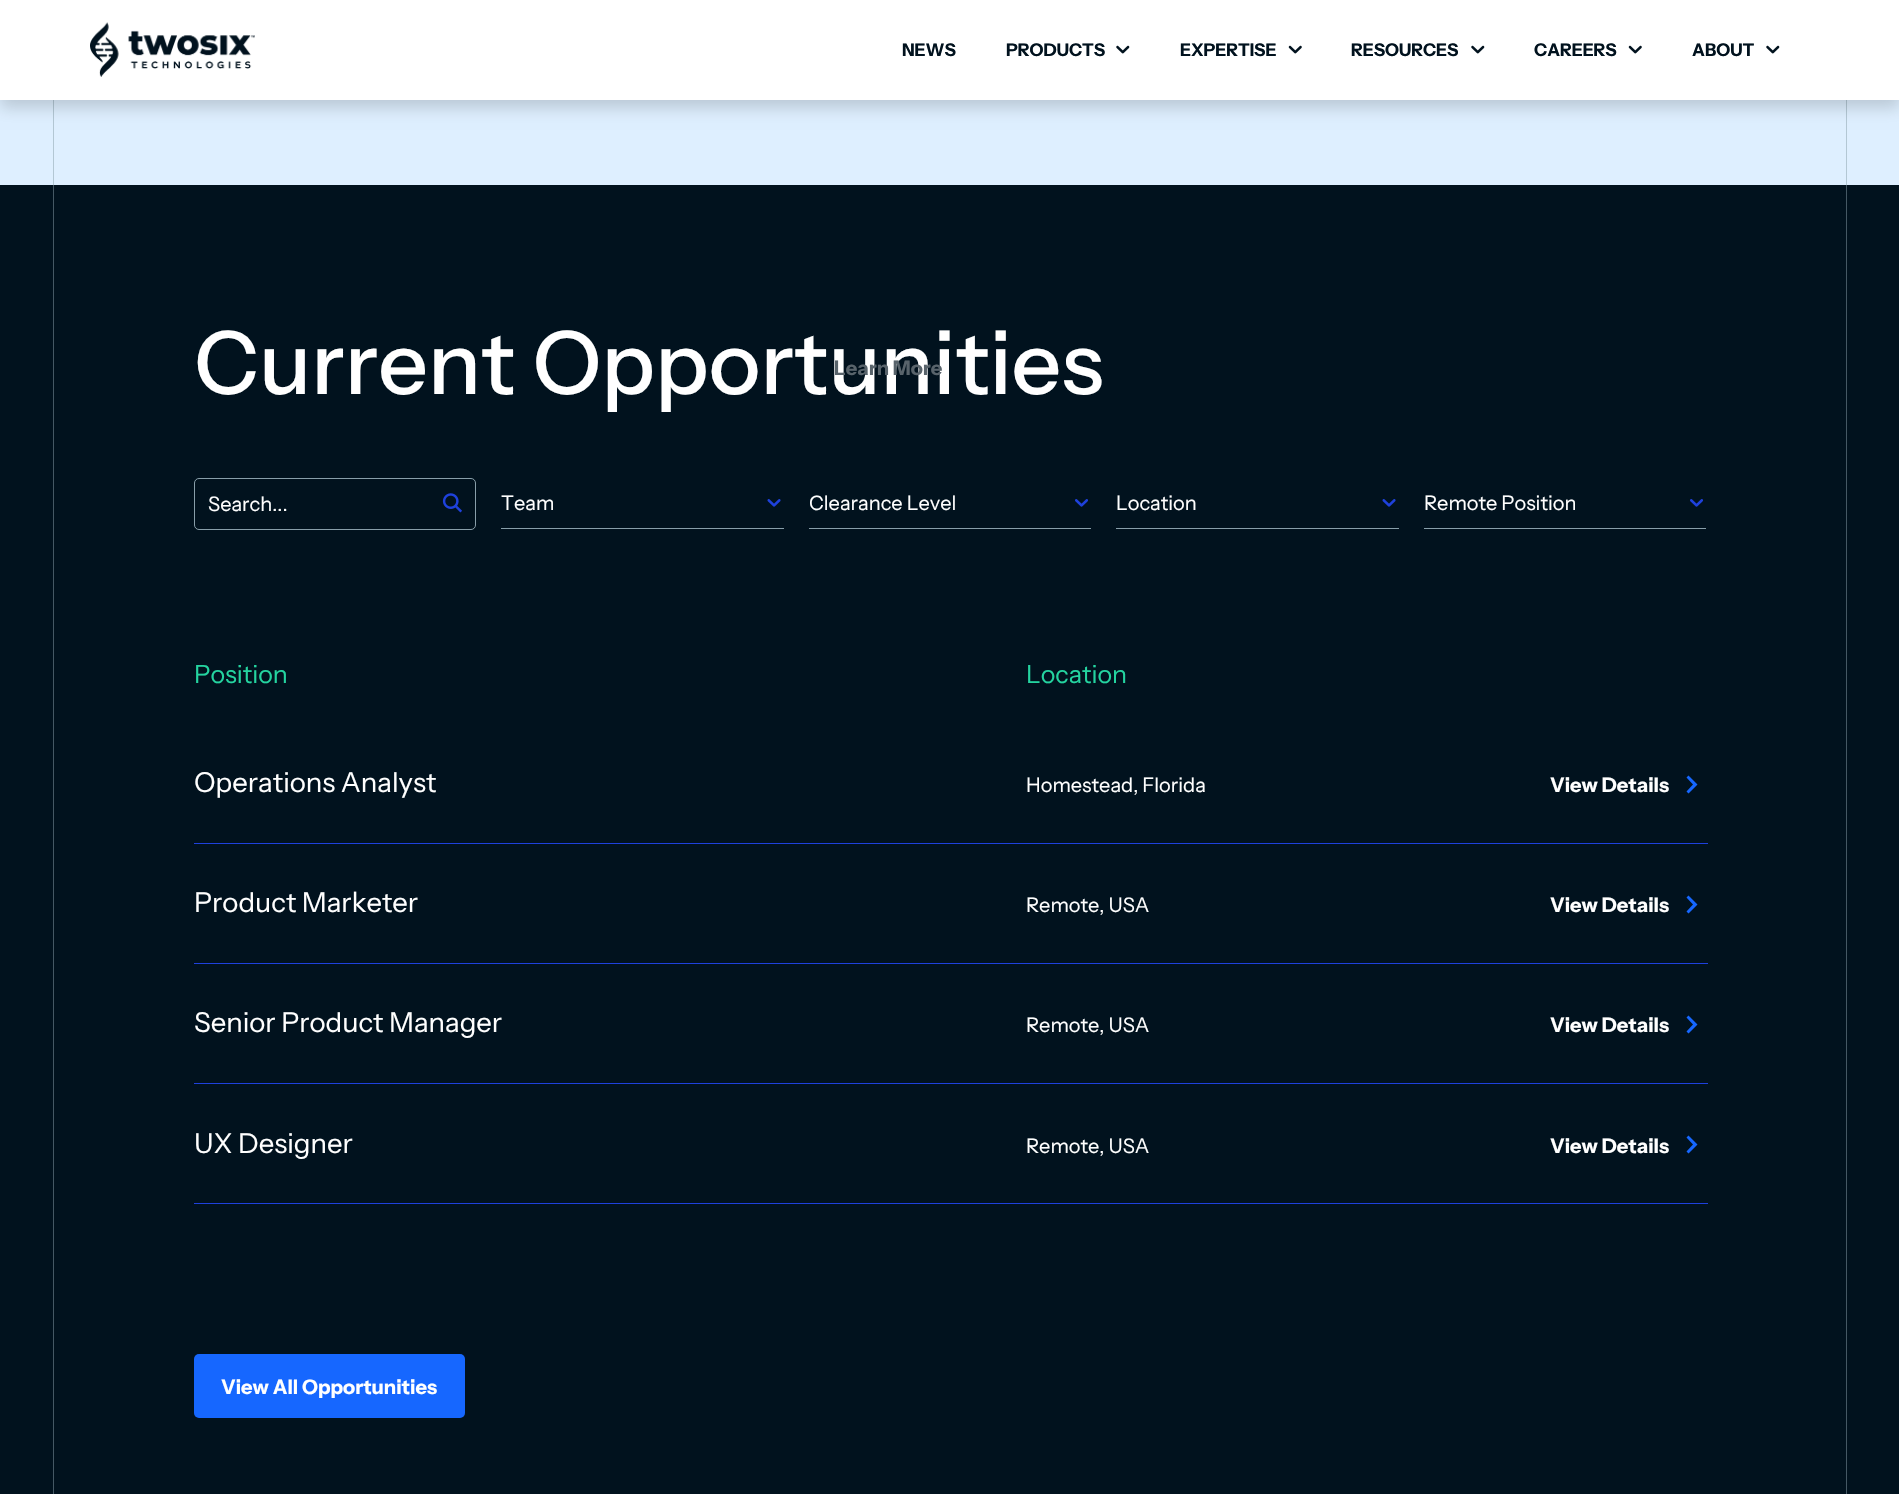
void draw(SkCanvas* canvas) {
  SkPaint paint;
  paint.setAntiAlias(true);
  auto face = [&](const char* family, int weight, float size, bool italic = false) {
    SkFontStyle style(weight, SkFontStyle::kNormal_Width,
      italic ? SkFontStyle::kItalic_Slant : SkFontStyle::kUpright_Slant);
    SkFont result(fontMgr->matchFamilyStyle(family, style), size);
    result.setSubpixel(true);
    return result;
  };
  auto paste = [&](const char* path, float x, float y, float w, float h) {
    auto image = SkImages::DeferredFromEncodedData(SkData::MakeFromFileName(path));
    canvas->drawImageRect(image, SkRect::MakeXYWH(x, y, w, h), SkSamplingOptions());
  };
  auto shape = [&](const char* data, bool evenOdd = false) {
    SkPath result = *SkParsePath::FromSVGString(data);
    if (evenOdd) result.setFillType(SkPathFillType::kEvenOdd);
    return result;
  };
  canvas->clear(0xffdeefff);
  paint.setColor(0xffb3c7d4);
  canvas->drawRect(SkRect::MakeXYWH(53, 100, 1, 85), paint);
  canvas->drawRect(SkRect::MakeXYWH(1846, 100, 1, 85), paint);
  paint.setColor(0x29000000);
  paint.setMaskFilter(SkMaskFilter::MakeBlur(kNormal_SkBlurStyle, 7.5f));
  canvas->drawRect(SkRect::MakeXYWH(0, 8, 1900, 100), paint);
  paint.setMaskFilter(nullptr);
  paint.setColor(0xffffffff);
  canvas->drawRect(SkRect::MakeXYWH(0, 0, 1899, 100), paint);
  paste("img/1.png", 90, 22, 165, 55);
  paste("img/2.png", 1288, 45, 14, 9);
  paste("img/3.png", 1116, 45, 14, 9);
  paste("img/3.png", 1471, 45, 14, 9);
  paste("img/2.png", 1628, 45, 14, 9);
  paste("img/3.png", 1766, 45, 14, 9);
  {
    const struct { float x, y, w, h; SkColor color; } items[] = {
      {0, 185, 1899, 1309, 0xff01121e},
      {53, 185, 1, 1309, 0xff455864},
      {1846, 185, 1, 1309, 0xff455864},
    };
    for (auto [x, y, w, h, color] : items) {
      paint.setColor(color);
      canvas->drawRect(SkRect::MakeXYWH(x, y, w, h), paint);
    }
  }
  paint.setStroke(true);
  paint.setStrokeWidth(1);
  paint.setColor(0xff889ea9);
  canvas->drawRoundRect(SkRect::MakeXYWH(194.5f, 478.5f, 281, 51), 4.5f, 4.5f, paint);
  paste("img/4.png", 442, 493, 20, 20);
  paint.setStroke(false);
  canvas->drawRect(SkRect::MakeXYWH(501, 528, 283, 1), paint);
  paste("img/5.png", 767, 499, 14, 8);
  canvas->drawRect(SkRect::MakeXYWH(809, 528, 282, 1), paint);
  paste("img/6.png", 1075, 499, 13, 8);
  canvas->drawRect(SkRect::MakeXYWH(1116, 528, 283, 1), paint);
  paste("img/5.png", 1382, 499, 14, 8);
  canvas->drawRect(SkRect::MakeXYWH(1424, 528, 282, 1), paint);
  paste("img/6.png", 1690, 499, 13, 8);
  paint.setColor(0xff1e41dd);
  canvas->drawRect(SkRect::MakeXYWH(194, 843, 1514, 1), paint);
  paint.setColor(0xff1667ff);
  canvas->drawPath(shape("M1697.5 784.5L1688.5 793.5L1686.5 791.5L1693 784.5L1686.5 777.5L1688.5 775.5Z"), paint);
  paint.setColor(0xff1e41dd);
  canvas->drawRect(SkRect::MakeXYWH(194, 963, 1514, 1), paint);
  paint.setColor(0xff1667ff);
  canvas->drawPath(shape("M1697.5 904.5L1688.5 913.5L1686.5 911.5L1693 904.5L1686.5 897.5L1688.5 895.5Z"), paint);
  paint.setColor(0xff1e41dd);
  canvas->drawRect(SkRect::MakeXYWH(194, 1083, 1514, 1), paint);
  paint.setColor(0xff1667ff);
  canvas->drawPath(shape("M1697.5 1024.5L1688.5 1033.5L1686.5 1031.5L1693 1024.5L1686.5 1017.5L1688.5 1015.5Z"), paint);
  paint.setColor(0xff1e41dd);
  canvas->drawRect(SkRect::MakeXYWH(194, 1203, 1514, 1), paint);
  paint.setColor(0xff1667ff);
  canvas->drawPath(shape("M1697.5 1144.5L1688.5 1153.5L1686.5 1151.5L1693 1144.5L1686.5 1137.5L1688.5 1135.5Z"), paint);
  canvas->drawRoundRect(SkRect::MakeXYWH(194, 1354, 271, 64), 5, 5, paint);
  auto f0 = face("Instrument Sans", 700, 17.5f);
  paint.setColor(0xff01121e);
  {
    const struct { const char* s; float x, y; } items[] = {
      {"EXPERTISE", 1180, 56},
      {"NEWS", 902, 56},
      {"PRODUCTS", 1006, 56},
      {"RESOURCES", 1351, 56},
      {"CAREERS", 1534, 56},
      {"ABOUT", 1692, 56},
    };
    for (auto [s, x, y] : items) {
      canvas->drawString(s, x, y, f0, paint);
    }
  }
  auto f1 = face("Instrument Sans", 500, 87.5f);
  paint.setColor(0xffffffff);
  canvas->drawString("Current Opportunities", 194, 394, f1, paint);
  auto f2 = face("Instrument Sans", 700, 20);
  paint.setColor(0xff58636b);
  canvas->drawString("Learn More", 834, 375, f2, paint);
  auto f3 = face("Instrument Sans", 400, 20);
  paint.setColor(0xffffffff);
  {
    const struct { const char* s; float x, y; } items[] = {
      {"Search...", 208, 511},
      {"Team", 501, 510},
      {"Clearance Level", 809, 510},
      {"Location", 1116, 510},
      {"Remote Position", 1424, 510},
    };
    for (auto [s, x, y] : items) {
      canvas->drawString(s, x, y, f3, paint);
    }
  }
  auto f4 = face("Instrument Sans", 400, 25);
  paint.setColor(0xff24d4a0);
  canvas->drawString("Position", 194, 683, f4, paint);
  canvas->drawString("Location", 1026, 683, f4, paint);
  auto f5 = face("Instrument Sans", 400, 27.5f);
  paint.setColor(0xffffffff);
  canvas->drawString("Operations Analyst", 194, 792, f5, paint);
  canvas->drawString("Homestead, Florida", 1026, 792, f3, paint);
  canvas->drawString("View Details", 1550, 792, f2, paint);
  canvas->drawString("Product Marketer", 194, 912, f5, paint);
  canvas->drawString("Remote, USA", 1026, 912, f3, paint);
  canvas->drawString("View Details", 1550, 912, f2, paint);
  canvas->drawString("Senior Product Manager", 194, 1032, f5, paint);
  canvas->drawString("Remote, USA", 1026, 1032, f3, paint);
  canvas->drawString("View Details", 1550, 1032, f2, paint);
  canvas->drawString("UX Designer", 194, 1153, f5, paint);
  canvas->drawString("Remote, USA", 1026, 1153, f3, paint);
  canvas->drawString("View Details", 1550, 1153, f2, paint);
  canvas->drawString("View All Opportunities", 221, 1394, f2, paint);
}
